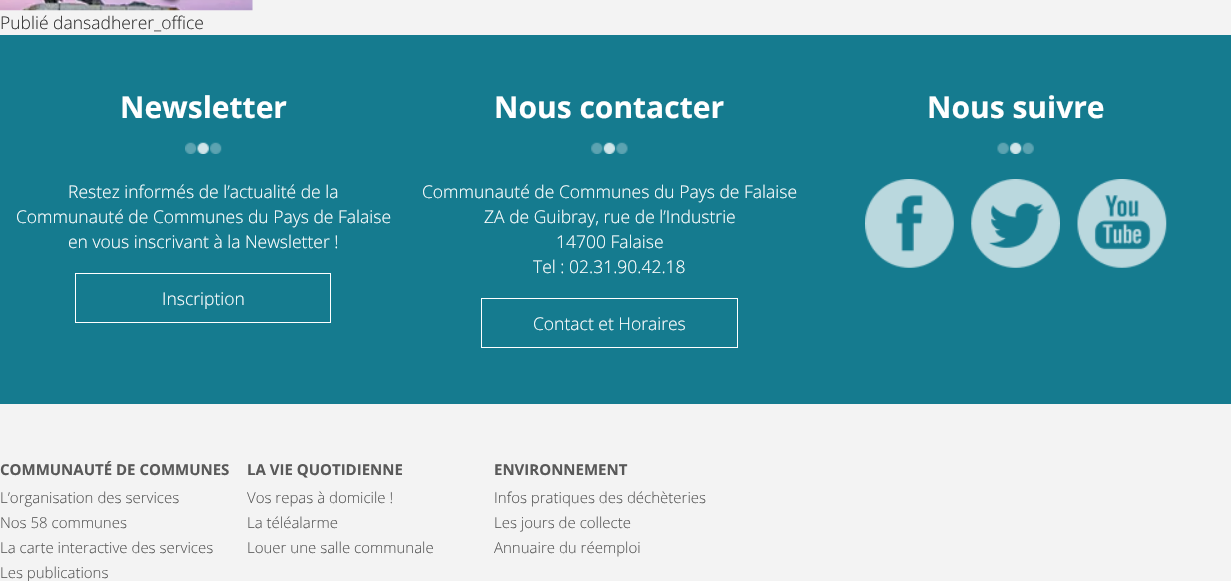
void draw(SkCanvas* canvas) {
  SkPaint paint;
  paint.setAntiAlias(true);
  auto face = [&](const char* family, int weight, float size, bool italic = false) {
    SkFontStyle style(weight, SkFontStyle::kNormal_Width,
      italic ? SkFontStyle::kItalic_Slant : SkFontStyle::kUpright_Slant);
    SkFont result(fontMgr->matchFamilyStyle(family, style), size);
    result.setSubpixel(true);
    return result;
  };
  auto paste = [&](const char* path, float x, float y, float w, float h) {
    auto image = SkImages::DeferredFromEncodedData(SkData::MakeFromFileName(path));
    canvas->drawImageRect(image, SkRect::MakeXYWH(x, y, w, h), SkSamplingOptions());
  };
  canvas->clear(0xfff3f3f3);
  paste("img/1.png", 0, 0, 253, 11);
  paint.setColor(0xff157b8f);
  canvas->drawRect(SkRect::MakeXYWH(0, 35, 1231, 369), paint);
  paste("img/2.png", 185, 142, 37, 12);
  paint.setStroke(true);
  paint.setStrokeWidth(1);
  paint.setColor(0xffffffff);
  canvas->drawRect(SkRect::MakeXYWH(75.5f, 273.5f, 255, 49), paint);
  paste("img/3.png", 591, 142, 37, 12);
  canvas->drawRect(SkRect::MakeXYWH(481.5f, 298.5f, 256, 49), paint);
  paste("img/4.png", 997, 142, 37, 12);
  paste("img/5.png", 865, 179, 89, 89);
  paste("img/6.png", 971, 179, 89, 89);
  paste("img/7.png", 1077, 179, 90, 89);
  auto f0 = face("Open Sans", 300, 17.5f);
  paint.setStroke(false);
  paint.setColor(0xff333333);
  canvas->drawString("Publié dansadherer_office", 0, 29, f0, paint);
  auto f1 = face("Open Sans", 700, 30);
  paint.setColor(0xffffffff);
  canvas->drawString("Newsletter", 120, 118, f1, paint);
  {
    const struct { const char* s; float x, y; } items[] = {
      {"Restez informés de l’actualité de la", 68, 198},
      {"Communauté de Communes du Pays de Falaise", 16, 223},
      {"en vous inscrivant à la Newsletter !", 68, 248},
      {"Inscription", 162, 305},
    };
    for (auto [s, x, y] : items) {
      canvas->drawString(s, x, y, f0, paint);
    }
  }
  canvas->drawString("Nous contacter", 494, 118, f1, paint);
  {
    const struct { const char* s; float x, y; } items[] = {
      {"Communauté de Communes du Pays de Falaise", 422, 198},
      {"ZA de Guibray, rue de l’Industrie", 484, 223},
      {"14700 Falaise", 556, 248},
      {"Tel : 02.31.90.42.18", 533, 273},
      {"Contact et Horaires", 533, 330},
    };
    for (auto [s, x, y] : items) {
      canvas->drawString(s, x, y, f0, paint);
    }
  }
  canvas->drawString("Nous suivre", 927, 118, f1, paint);
  auto f2 = face("Open Sans", 700, 15);
  paint.setColor(0xff595959);
  canvas->drawString("COMMUNAUTÉ DE COMMUNES", 0, 475, f2, paint);
  auto f3 = face("Open Sans", 300, 15);
  {
    const struct { const char* s; float x, y; } items[] = {
      {"L’organisation des services", 0, 503},
      {"Nos 58 communes", 0, 528},
      {"La carte interactive des services", 0, 553},
      {"Les publications", 0, 578},
    };
    for (auto [s, x, y] : items) {
      canvas->drawString(s, x, y, f3, paint);
    }
  }
  canvas->drawString("LA VIE QUOTIDIENNE", 247, 475, f2, paint);
  {
    const struct { const char* s; float x, y; } items[] = {
      {"Vos repas à domicile !", 247, 503},
      {"La téléalarme", 247, 528},
      {"Louer une salle communale", 247, 553},
    };
    for (auto [s, x, y] : items) {
      canvas->drawString(s, x, y, f3, paint);
    }
  }
  canvas->drawString("ENVIRONNEMENT", 494, 475, f2, paint);
  {
    const struct { const char* s; float x, y; } items[] = {
      {"Infos pratiques des déchèteries", 494, 503},
      {"Les jours de collecte", 494, 528},
      {"Annuaire du réemploi", 494, 553},
    };
    for (auto [s, x, y] : items) {
      canvas->drawString(s, x, y, f3, paint);
    }
  }
}
